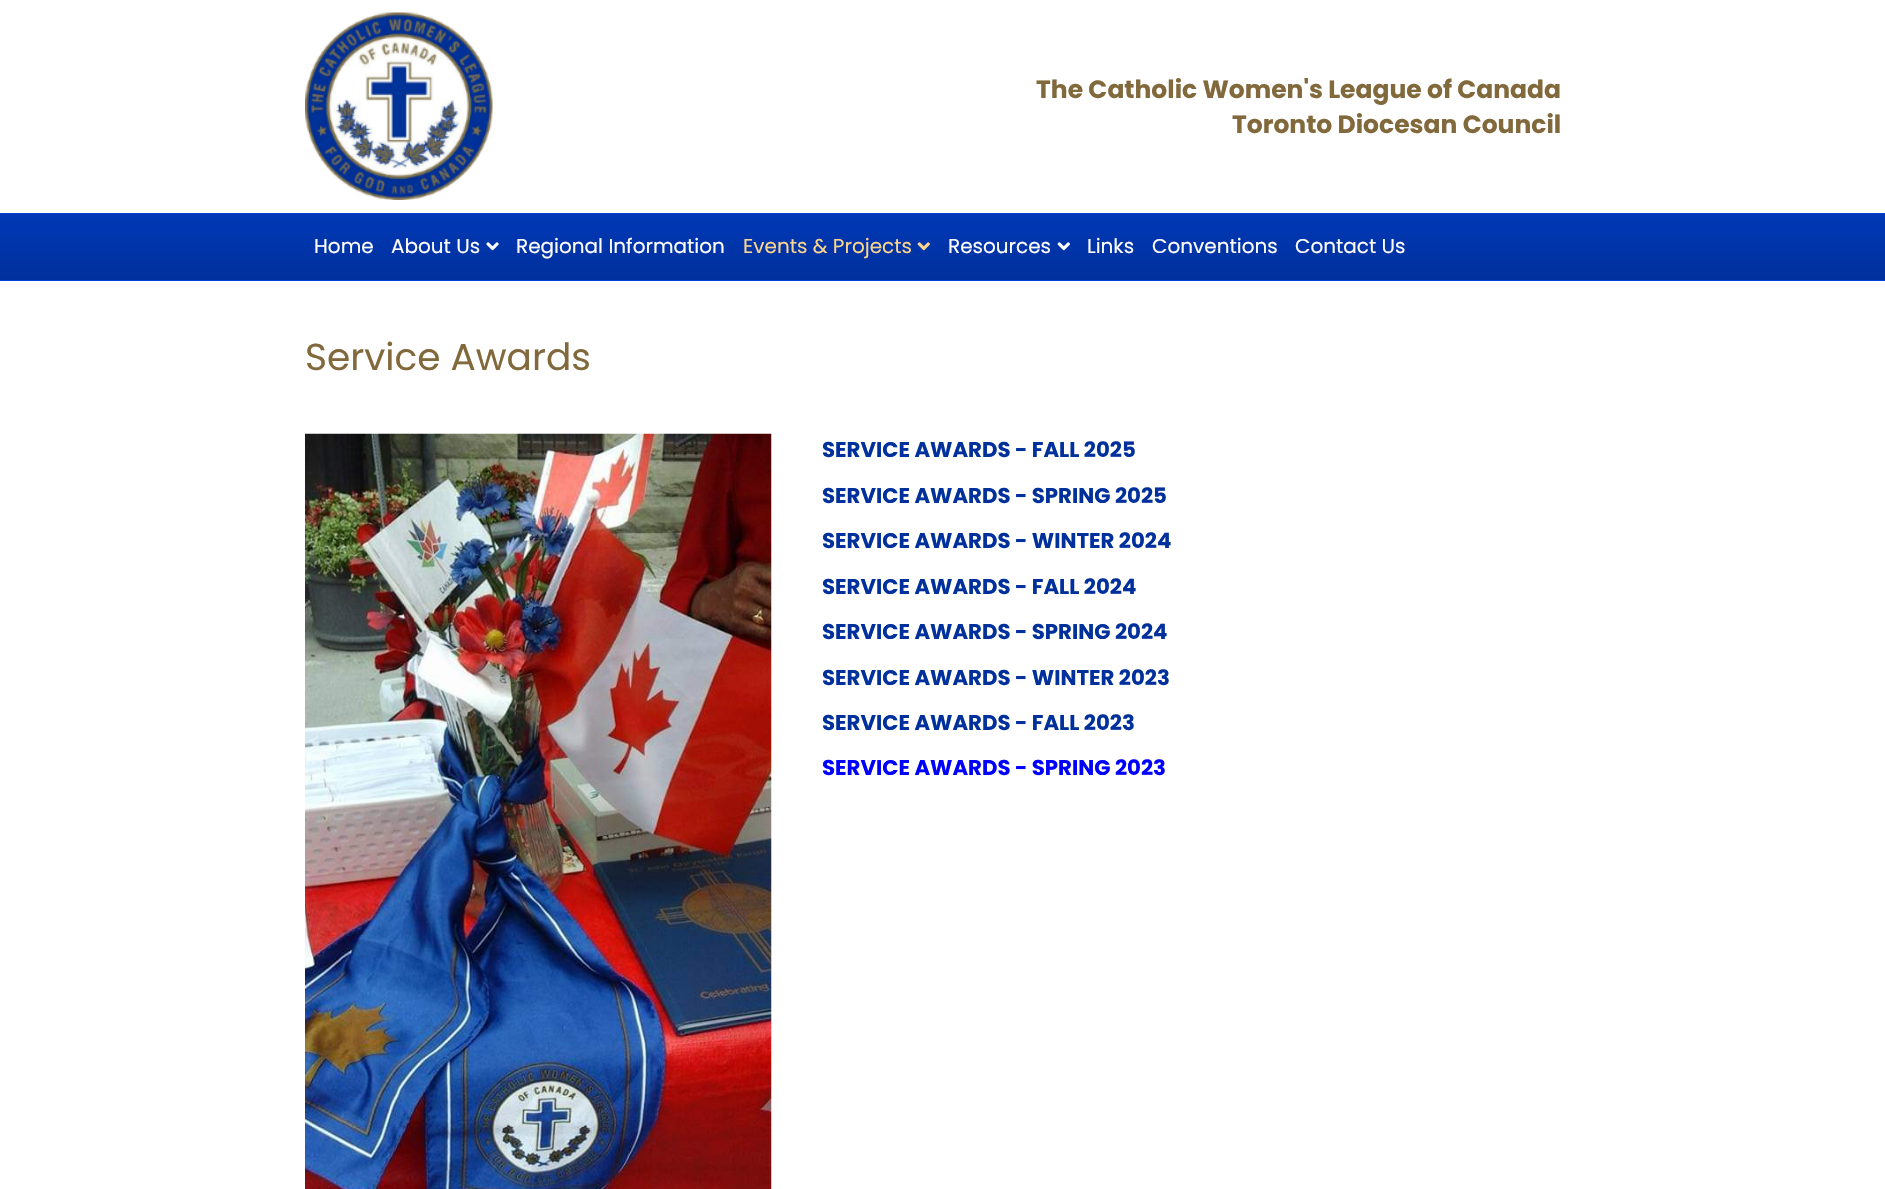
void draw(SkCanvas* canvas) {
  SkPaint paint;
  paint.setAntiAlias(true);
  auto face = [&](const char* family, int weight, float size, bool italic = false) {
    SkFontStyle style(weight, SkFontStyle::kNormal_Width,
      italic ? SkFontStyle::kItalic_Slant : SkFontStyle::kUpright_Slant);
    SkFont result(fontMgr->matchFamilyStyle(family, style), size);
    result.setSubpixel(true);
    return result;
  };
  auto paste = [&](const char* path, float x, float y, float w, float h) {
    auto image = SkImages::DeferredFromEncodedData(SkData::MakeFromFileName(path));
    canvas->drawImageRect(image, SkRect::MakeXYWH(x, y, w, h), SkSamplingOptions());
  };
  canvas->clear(0xffffffff);
  paste("img/1.png", 305, 12, 188, 188);
  {
    const SkColor colors[] = {0xff0038b6, 0xff00309c};
    const float stops[] = {0, 1};
    const SkPoint ends[] = {{943, 214}, {943, 280}};
    paint.setShader(SkGradientShader::MakeLinear(ends, colors, stops, 2, SkTileMode::kClamp));
    paint.setAlpha(255);
  }
  canvas->drawRect(SkRect::MakeXYWH(0, 214, 1885, 66), paint);
  paint.setShader(nullptr);
  paint.setColor(0xff0044de);
  canvas->drawRect(SkRect::MakeXYWH(0, 213, 1885, 1), paint);
  canvas->drawRect(SkRect::MakeXYWH(0, 280, 1885, 1), paint);
  paste("img/2.png", 486, 242, 13, 9);
  paste("img/3.png", 917, 242, 13, 9);
  paste("img/4.png", 1057, 242, 13, 9);
  paste("img/5.png", 305, 433, 467, 756);
  auto f0 = face("Poppins", 700, 25);
  paint.setColor(0xff81693c);
  canvas->drawString("The Catholic Women's League of Canada", 1036, 98, f0, paint);
  canvas->drawString("Toronto Diocesan Council", 1232, 133, f0, paint);
  auto f1 = face("Poppins", 400, 20);
  paint.setColor(0xffffffff);
  {
    const struct { const char* s; float x, y; } items[] = {
      {"Home", 314, 253},
      {"About Us", 391, 253},
      {"Regional Information", 516, 253},
    };
    for (auto [s, x, y] : items) {
      canvas->drawString(s, x, y, f1, paint);
    }
  }
  paint.setColor(0xfffcd58d);
  canvas->drawString("Events & Projects", 743, 253, f1, paint);
  paint.setColor(0xffffffff);
  {
    const struct { const char* s; float x, y; } items[] = {
      {"Resources", 948, 253},
      {"Links", 1087, 253},
      {"Conventions", 1152, 253},
      {"Contact Us", 1295, 253},
    };
    for (auto [s, x, y] : items) {
      canvas->drawString(s, x, y, f1, paint);
    }
  }
  auto f2 = face("Poppins", 400, 37.5f);
  paint.setColor(0xff81693c);
  canvas->drawString("Service Awards", 305, 370, f2, paint);
  auto f3 = face("Poppins", 700, 21.25f);
  paint.setColor(0xff00309c);
  {
    const struct { const char* s; float x, y; } items[] = {
      {"SERVICE AWARDS - FALL 2025", 822, 457},
      {"SERVICE AWARDS - SPRING 2025", 822, 503},
      {"SERVICE AWARDS - WINTER 2024", 822, 548},
      {"SERVICE AWARDS - FALL 2024", 822, 594},
      {"SERVICE AWARDS - SPRING 2024", 822, 639},
      {"SERVICE AWARDS - WINTER 2023", 822, 685},
      {"SERVICE AWARDS - FALL 2023", 822, 730},
    };
    for (auto [s, x, y] : items) {
      canvas->drawString(s, x, y, f3, paint);
    }
  }
  paint.setColor(0xff0000ff);
  canvas->drawString("SERVICE AWARDS - SPRING 2023", 822, 775, f3, paint);
}
